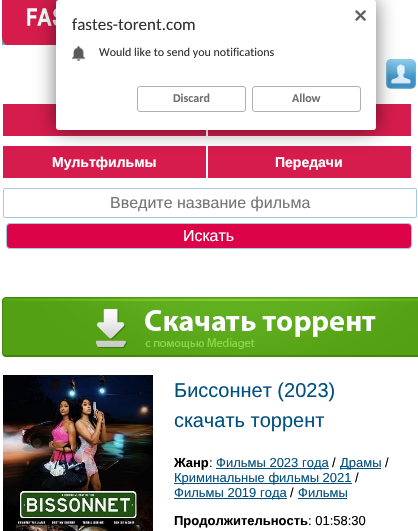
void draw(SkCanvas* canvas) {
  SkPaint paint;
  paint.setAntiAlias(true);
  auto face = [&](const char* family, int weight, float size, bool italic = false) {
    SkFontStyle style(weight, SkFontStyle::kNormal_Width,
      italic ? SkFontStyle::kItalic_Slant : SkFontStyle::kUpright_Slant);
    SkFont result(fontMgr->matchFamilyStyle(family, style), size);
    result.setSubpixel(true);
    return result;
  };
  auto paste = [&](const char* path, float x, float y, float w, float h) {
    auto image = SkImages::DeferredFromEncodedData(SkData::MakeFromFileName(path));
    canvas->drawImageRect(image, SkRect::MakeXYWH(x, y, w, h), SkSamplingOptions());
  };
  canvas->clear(0xffffffff);
  paste("img/3.png", 2, 0, 57, 45);
  paste("img/4.png", 386, 59, 30, 30);
  {
    const struct { float x, y, w, h; SkColor color; } items[] = {
      {3, 104, 203, 32, 0xffd51c4c},
      {208, 104, 203, 32, 0xffd51c4c},
      {3, 146, 203, 32, 0xffd51c4c},
      {208, 146, 203, 32, 0xffd51c4c},
    };
    for (auto [x, y, w, h, color] : items) {
      paint.setColor(color);
      canvas->drawRect(SkRect::MakeXYWH(x, y, w, h), paint);
    }
  }
  paint.setColor(0x8a000000);
  paint.setMaskFilter(SkMaskFilter::MakeBlur(kNormal_SkBlurStyle, 10));
  canvas->drawRoundRect(SkRect::MakeXYWH(56, 0, 320, 130), 3, 3, paint);
  paint.setMaskFilter(nullptr);
  paint.setColor(0xffffffff);
  canvas->drawRoundRect(SkRect::MakeXYWH(56, 0, 320, 130), 3, 3, paint);
  paste("img/1.png", 355, 10, 11, 11);
  paste("img/2.png", 72, 45, 13, 16);
  paint.setStroke(true);
  paint.setStrokeWidth(1);
  paint.setColor(0xffafafaf);
  canvas->drawRoundRect(SkRect::MakeXYWH(137.5f, 86.5f, 108, 25), 2.5f, 2.5f, paint);
  canvas->drawRoundRect(SkRect::MakeXYWH(252.5f, 86.5f, 108, 25), 2.5f, 2.5f, paint);
  paint.setColor(0xffa6c9e2);
  canvas->drawRoundRect(SkRect::MakeXYWH(3.5f, 188.5f, 413, 29), 1.5f, 1.5f, paint);
  paint.setStroke(false);
  paint.setColor(0xffdb0247);
  canvas->drawRoundRect(SkRect::MakeXYWH(6.5f, 223.5f, 405, 25), 3.5f, 3.5f, paint);
  paint.setStroke(true);
  paint.setColor(0xffa6c9e2);
  canvas->drawRoundRect(SkRect::MakeXYWH(6.5f, 223.5f, 405, 25), 3.5f, 3.5f, paint);
  paste("img/5.png", 2, 297, 416, 60);
  paste("img/6.png", 3, 375, 150, 156);
  paint.setStroke(false);
  {
    const struct { float x, y, w, h; SkColor color; } items[] = {
      {216, 468, 113, 1, 0xff005081},
      {340, 468, 41, 1, 0xff005081},
      {174, 483, 178, 1, 0xff005081},
      {174, 498, 113, 1, 0xff005081},
      {298, 498, 49, 1, 0xff005081},
    };
    for (auto [x, y, w, h, color] : items) {
      paint.setColor(color);
      canvas->drawRect(SkRect::MakeXYWH(x, y, w, h), paint);
    }
  }
  auto f0 = face("Carlito", 400, 17);
  paint.setColor(0xff333333);
  canvas->drawString("fastes-torent.com", 72, 30, f0, paint);
  auto f1 = face("Carlito", 400, 12);
  canvas->drawString("Would like to send you notifications", 99, 56, f1, paint);
  auto f2 = face("Carlito", 700, 12);
  paint.setColor(0xff6f6f6f);
  canvas->drawString("Discard", 173, 102, f2, paint);
  canvas->drawString("Allow", 292, 102, f2, paint);
  auto f3 = face("Liberation Sans", 700, 14);
  paint.setColor(0xffffffff);
  canvas->drawString("Мультфильмы", 52, 167, f3, paint);
  canvas->drawString("Передачи", 275, 167, f3, paint);
  auto f4 = face("Liberation Sans", 400, 16);
  paint.setColor(0xff757575);
  canvas->drawString("Введите название фильма", 110, 208, f4, paint);
  paint.setColor(0xffffffff);
  canvas->drawString("Искать", 183, 241, f4, paint);
  auto f5 = face("Liberation Sans", 400, 20);
  paint.setColor(0xff025080);
  canvas->drawString("Биссоннет (2023)", 174, 397, f5, paint);
  canvas->drawString("скачать торрент", 174, 427, f5, paint);
  auto f6 = face("Liberation Sans", 700, 13);
  paint.setColor(0xff000000);
  canvas->drawString("Жанр", 174, 467, f6, paint);
  auto f7 = face("Liberation Sans", 400, 13);
  canvas->drawString(":", 209, 467, f7, paint);
  paint.setColor(0xff025080);
  canvas->drawString("Фильмы 2023 года", 216, 467, f7, paint);
  paint.setColor(0xff000000);
  canvas->drawString("/", 332, 467, f7, paint);
  paint.setColor(0xff025080);
  canvas->drawString("Драмы", 340, 467, f7, paint);
  paint.setColor(0xff000000);
  canvas->drawString("/", 385, 467, f7, paint);
  paint.setColor(0xff025080);
  canvas->drawString("Криминальные фильмы 2021", 174, 482, f7, paint);
  paint.setColor(0xff000000);
  canvas->drawString("/", 355, 482, f7, paint);
  paint.setColor(0xff025080);
  canvas->drawString("Фильмы 2019 года", 174, 497, f7, paint);
  paint.setColor(0xff000000);
  canvas->drawString("/", 290, 497, f7, paint);
  paint.setColor(0xff025080);
  canvas->drawString("Фильмы", 298, 497, f7, paint);
  paint.setColor(0xff000000);
  canvas->drawString("Продолжительность", 174, 525, f6, paint);
  canvas->drawString(": 01:58:30", 308, 525, f7, paint);
}
